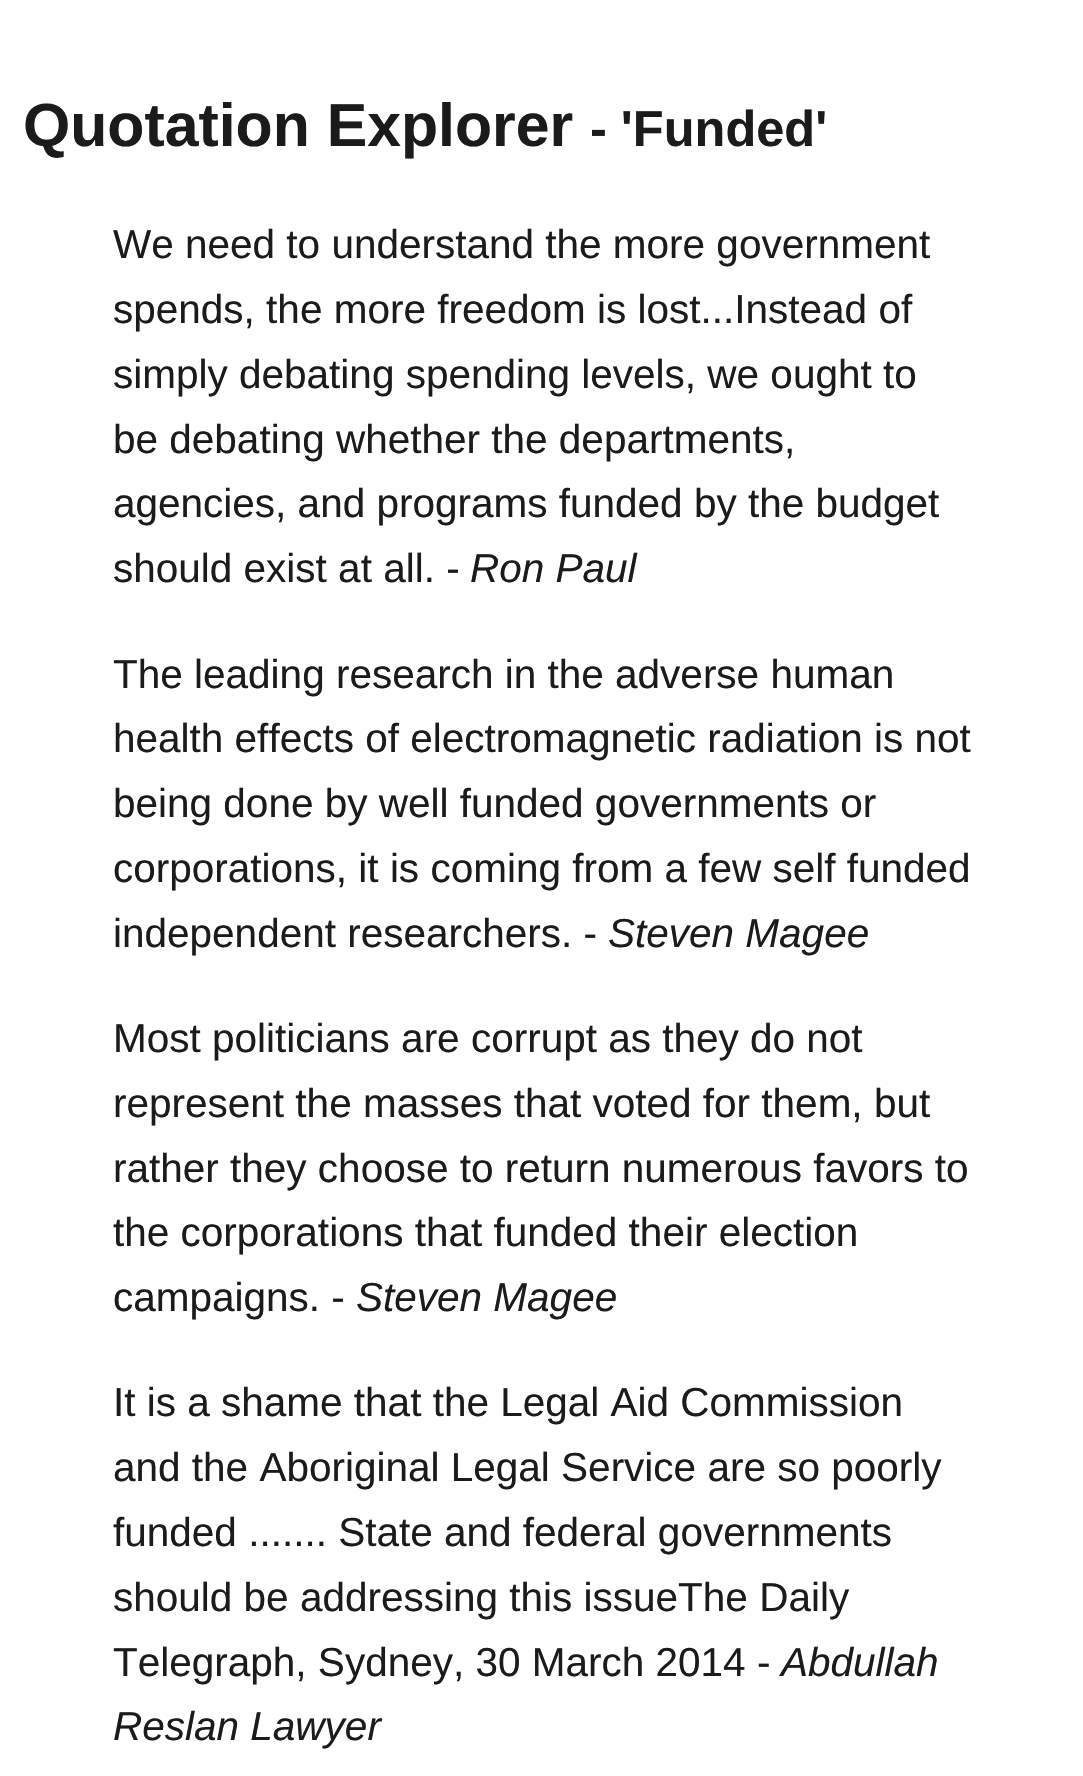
void draw(SkCanvas* canvas) {
  SkPaint paint;
  paint.setAntiAlias(true);
  auto face = [&](const char* family, int weight, float size, bool italic = false) {
    SkFontStyle style(weight, SkFontStyle::kNormal_Width,
      italic ? SkFontStyle::kItalic_Slant : SkFontStyle::kUpright_Slant);
    SkFont result(fontMgr->matchFamilyStyle(family, style), size);
    result.setSubpixel(true);
    return result;
  };
  canvas->clear(0xffffffff);
  auto f0 = face("Liberation Sans", 700, 60.75f);
  paint.setColor(0xff1b1b1b);
  canvas->drawString("Quotation Explorer", 23, 146, f0, paint);
  auto f1 = face("Liberation Sans", 700, 50.5f);
  canvas->drawString("- 'Funded'", 590, 146, f1, paint);
  auto f2 = face("Liberation Sans", 400, 40.5f);
  {
    const struct { const char* s; float x, y; } items[] = {
      {"We need to understand the more government", 113, 258},
      {"spends, the more freedom is lost...Instead of", 113, 323},
      {"simply debating spending levels, we ought to", 113, 388},
      {"be debating whether the departments,", 113, 453},
      {"agencies, and programs funded by the budget", 113, 517},
      {"should exist at all. -", 113, 582},
    };
    for (auto [s, x, y] : items) {
      canvas->drawString(s, x, y, f2, paint);
    }
  }
  auto f3 = face("Liberation Sans", 400, 40.5f, true);
  canvas->drawString("Ron Paul", 470, 582, f3, paint);
  {
    const struct { const char* s; float x, y; } items[] = {
      {"The leading research in the adverse human", 113, 688},
      {"health effects of electromagnetic radiation is not", 113, 752},
      {"being done by well funded governments or", 113, 817},
      {"corporations, it is coming from a few self funded", 113, 882},
      {"independent researchers. -", 113, 947},
    };
    for (auto [s, x, y] : items) {
      canvas->drawString(s, x, y, f2, paint);
    }
  }
  canvas->drawString("Steven Magee", 608, 947, f3, paint);
  {
    const struct { const char* s; float x, y; } items[] = {
      {"Most politicians are corrupt as they do not", 113, 1052},
      {"represent the masses that voted for them, but", 113, 1117},
      {"rather they choose to return numerous favors to", 113, 1182},
      {"the corporations that funded their election", 113, 1246},
      {"campaigns. -", 113, 1311},
    };
    for (auto [s, x, y] : items) {
      canvas->drawString(s, x, y, f2, paint);
    }
  }
  canvas->drawString("Steven Magee", 356, 1311, f3, paint);
  {
    const struct { const char* s; float x, y; } items[] = {
      {"It is a shame that the Legal Aid Commission", 113, 1416},
      {"and the Aboriginal Legal Service are so poorly", 113, 1481},
      {"funded ....... State and federal governments", 113, 1546},
      {"should be addressing this issueThe Daily", 113, 1611},
      {"Telegraph, Sydney, 30 March 2014 -", 113, 1676},
    };
    for (auto [s, x, y] : items) {
      canvas->drawString(s, x, y, f2, paint);
    }
  }
  canvas->drawString("Abdullah", 781, 1676, f3, paint);
  canvas->drawString("Reslan Lawyer", 113, 1740, f3, paint);
}
